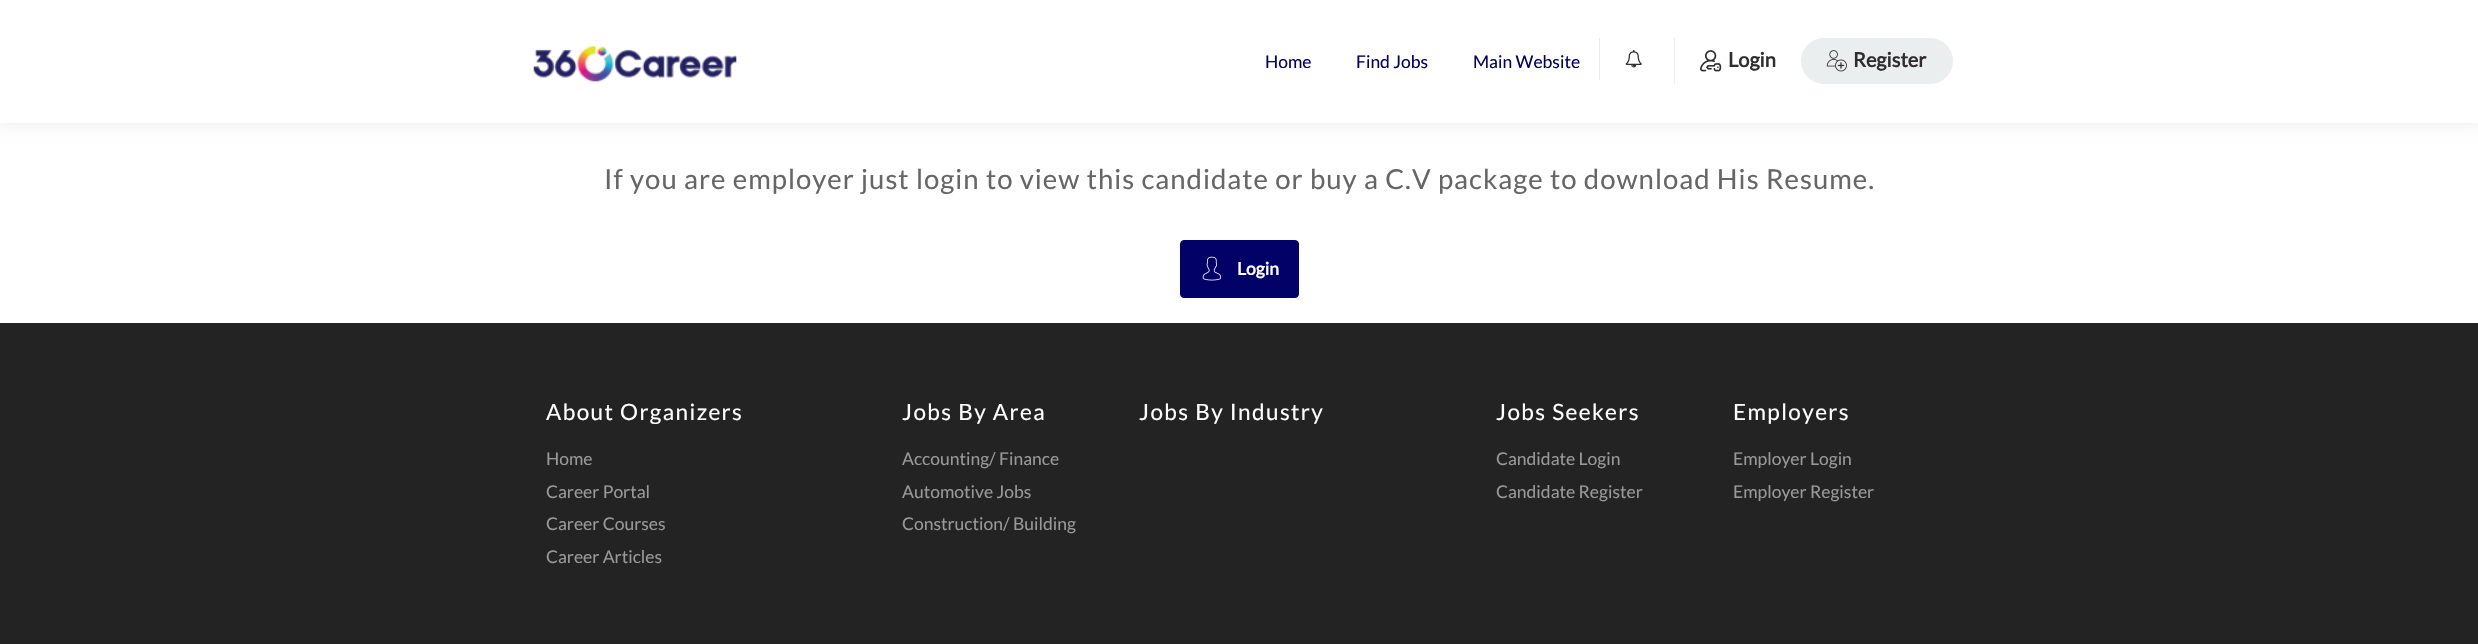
void draw(SkCanvas* canvas) {
  SkPaint paint;
  paint.setAntiAlias(true);
  auto face = [&](const char* family, int weight, float size, bool italic = false) {
    SkFontStyle style(weight, SkFontStyle::kNormal_Width,
      italic ? SkFontStyle::kItalic_Slant : SkFontStyle::kUpright_Slant);
    SkFont result(fontMgr->matchFamilyStyle(family, style), size);
    result.setSubpixel(true);
    return result;
  };
  auto writeSpaced = [&](const char* s, float x, float y, const SkFont& font, const SkPaint& ink, float letter, float word) {
    std::vector<SkGlyphID> glyphs(font.countText(s, strlen(s), SkTextEncoding::kUTF8));
    std::vector<float> xs(glyphs.size());
    font.textToGlyphs(s, strlen(s), SkTextEncoding::kUTF8, glyphs);
    font.getXPos(glyphs, xs, x);
    float extra = 0;
    for (size_t i = 0; i < glyphs.size(); i++) {
      xs[i] += extra;
      extra += letter + word * (glyphs[i] == font.unicharToGlyph(' '));
    }
    canvas->drawTextBlob(SkTextBlob::MakeFromPosHGlyphs(glyphs, xs, y, font), 0, 0, ink);
  };
  auto paste = [&](const char* path, float x, float y, float w, float h) {
    auto image = SkImages::DeferredFromEncodedData(SkData::MakeFromFileName(path));
    canvas->drawImageRect(image, SkRect::MakeXYWH(x, y, w, h), SkSamplingOptions());
  };
  canvas->clear(0xffffffff);
  paint.setColor(0xffeeeeee);
  paint.setMaskFilter(SkMaskFilter::MakeBlur(kNormal_SkBlurStyle, 6));
  canvas->drawRect(SkRect::MakeXYWH(-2, -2, 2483, 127), paint);
  paint.setMaskFilter(nullptr);
  paint.setColor(0xffffffff);
  canvas->drawRect(SkRect::MakeXYWH(0, 0, 2478, 123), paint);
  paste("img/1.png", 533, 46, 204, 36);
  paint.setColor(0xffebeeef);
  canvas->drawRect(SkRect::MakeXYWH(1599, 38, 1, 42), paint);
  paste("img/2.png", 1625, 50, 17, 18);
  canvas->drawRect(SkRect::MakeXYWH(1674, 38, 1, 46), paint);
  paste("img/3.png", 1700, 50, 22, 22);
  canvas->drawRoundRect(SkRect::MakeXYWH(1801, 38, 152, 46), 23, 23, paint);
  paste("img/4.png", 1826, 50, 21, 22);
  paint.setColor(0xff010168);
  canvas->drawRoundRect(SkRect::MakeXYWH(1180.5f, 240.5f, 118, 57), 3.5f, 3.5f, paint);
  paint.setStroke(true);
  paint.setStrokeWidth(1);
  canvas->drawRoundRect(SkRect::MakeXYWH(1180.5f, 240.5f, 118, 57), 3.5f, 3.5f, paint);
  paste("img/5.png", 1202, 256, 19, 25);
  paint.setStroke(false);
  paint.setColor(0xff232323);
  canvas->drawRect(SkRect::MakeXYWH(0, 323, 2478, 321), paint);
  auto f0 = face("Lato", 400, 17.5f);
  paint.setColor(0xff010168);
  {
    const struct { const char* s; float x, y; } items[] = {
      {"Home", 1265, 68},
      {"Find Jobs", 1356, 68},
      {"Main Website", 1473, 68},
    };
    for (auto [s, x, y] : items) {
      canvas->drawString(s, x, y, f0, paint);
    }
  }
  auto f1 = face("Lato", 700, 20);
  paint.setColor(0xff2e2e2e);
  canvas->drawString("Login", 1728, 67, f1, paint);
  canvas->drawString("Register", 1853, 67, f1, paint);
  auto f2 = face("Lato", 400, 27.5f);
  paint.setColor(0xff666666);
  writeSpaced("If you are employer just login to view this candidate or buy a C.V package to download His Resume.", 604, 189, f2, paint, 1, 0);
  auto f3 = face("Lato", 700, 17.5f);
  paint.setColor(0xffffffff);
  canvas->drawString("Login", 1237, 275, f3, paint);
  auto f4 = face("Lato", 400, 22.5f);
  writeSpaced("About Organizers", 546, 420, f4, paint, 1.4f, 0);
  paint.setColor(0xff999999);
  {
    const struct { const char* s; float x, y; } items[] = {
      {"Home", 546, 465},
      {"Career Portal", 546, 498},
      {"Career Courses", 546, 530},
      {"Career Articles", 546, 563},
    };
    for (auto [s, x, y] : items) {
      canvas->drawString(s, x, y, f0, paint);
    }
  }
  paint.setColor(0xffffffff);
  writeSpaced("Jobs By Area", 902, 420, f4, paint, 1.4f, 0);
  paint.setColor(0xff999999);
  {
    const struct { const char* s; float x, y; } items[] = {
      {"Accounting/ Finance", 902, 465},
      {"Automotive Jobs", 902, 498},
      {"Construction/ Building", 902, 530},
    };
    for (auto [s, x, y] : items) {
      canvas->drawString(s, x, y, f0, paint);
    }
  }
  paint.setColor(0xffffffff);
  writeSpaced("Jobs By Industry", 1139, 420, f4, paint, 1.4f, 0);
  writeSpaced("Jobs Seekers", 1496, 420, f4, paint, 1.4f, 0);
  paint.setColor(0xff999999);
  canvas->drawString("Candidate Login", 1496, 465, f0, paint);
  canvas->drawString("Candidate Register", 1496, 498, f0, paint);
  paint.setColor(0xffffffff);
  writeSpaced("Employers", 1733, 420, f4, paint, 1.4f, 0);
  paint.setColor(0xff999999);
  canvas->drawString("Employer Login", 1733, 465, f0, paint);
  canvas->drawString("Employer Register", 1733, 498, f0, paint);
}
